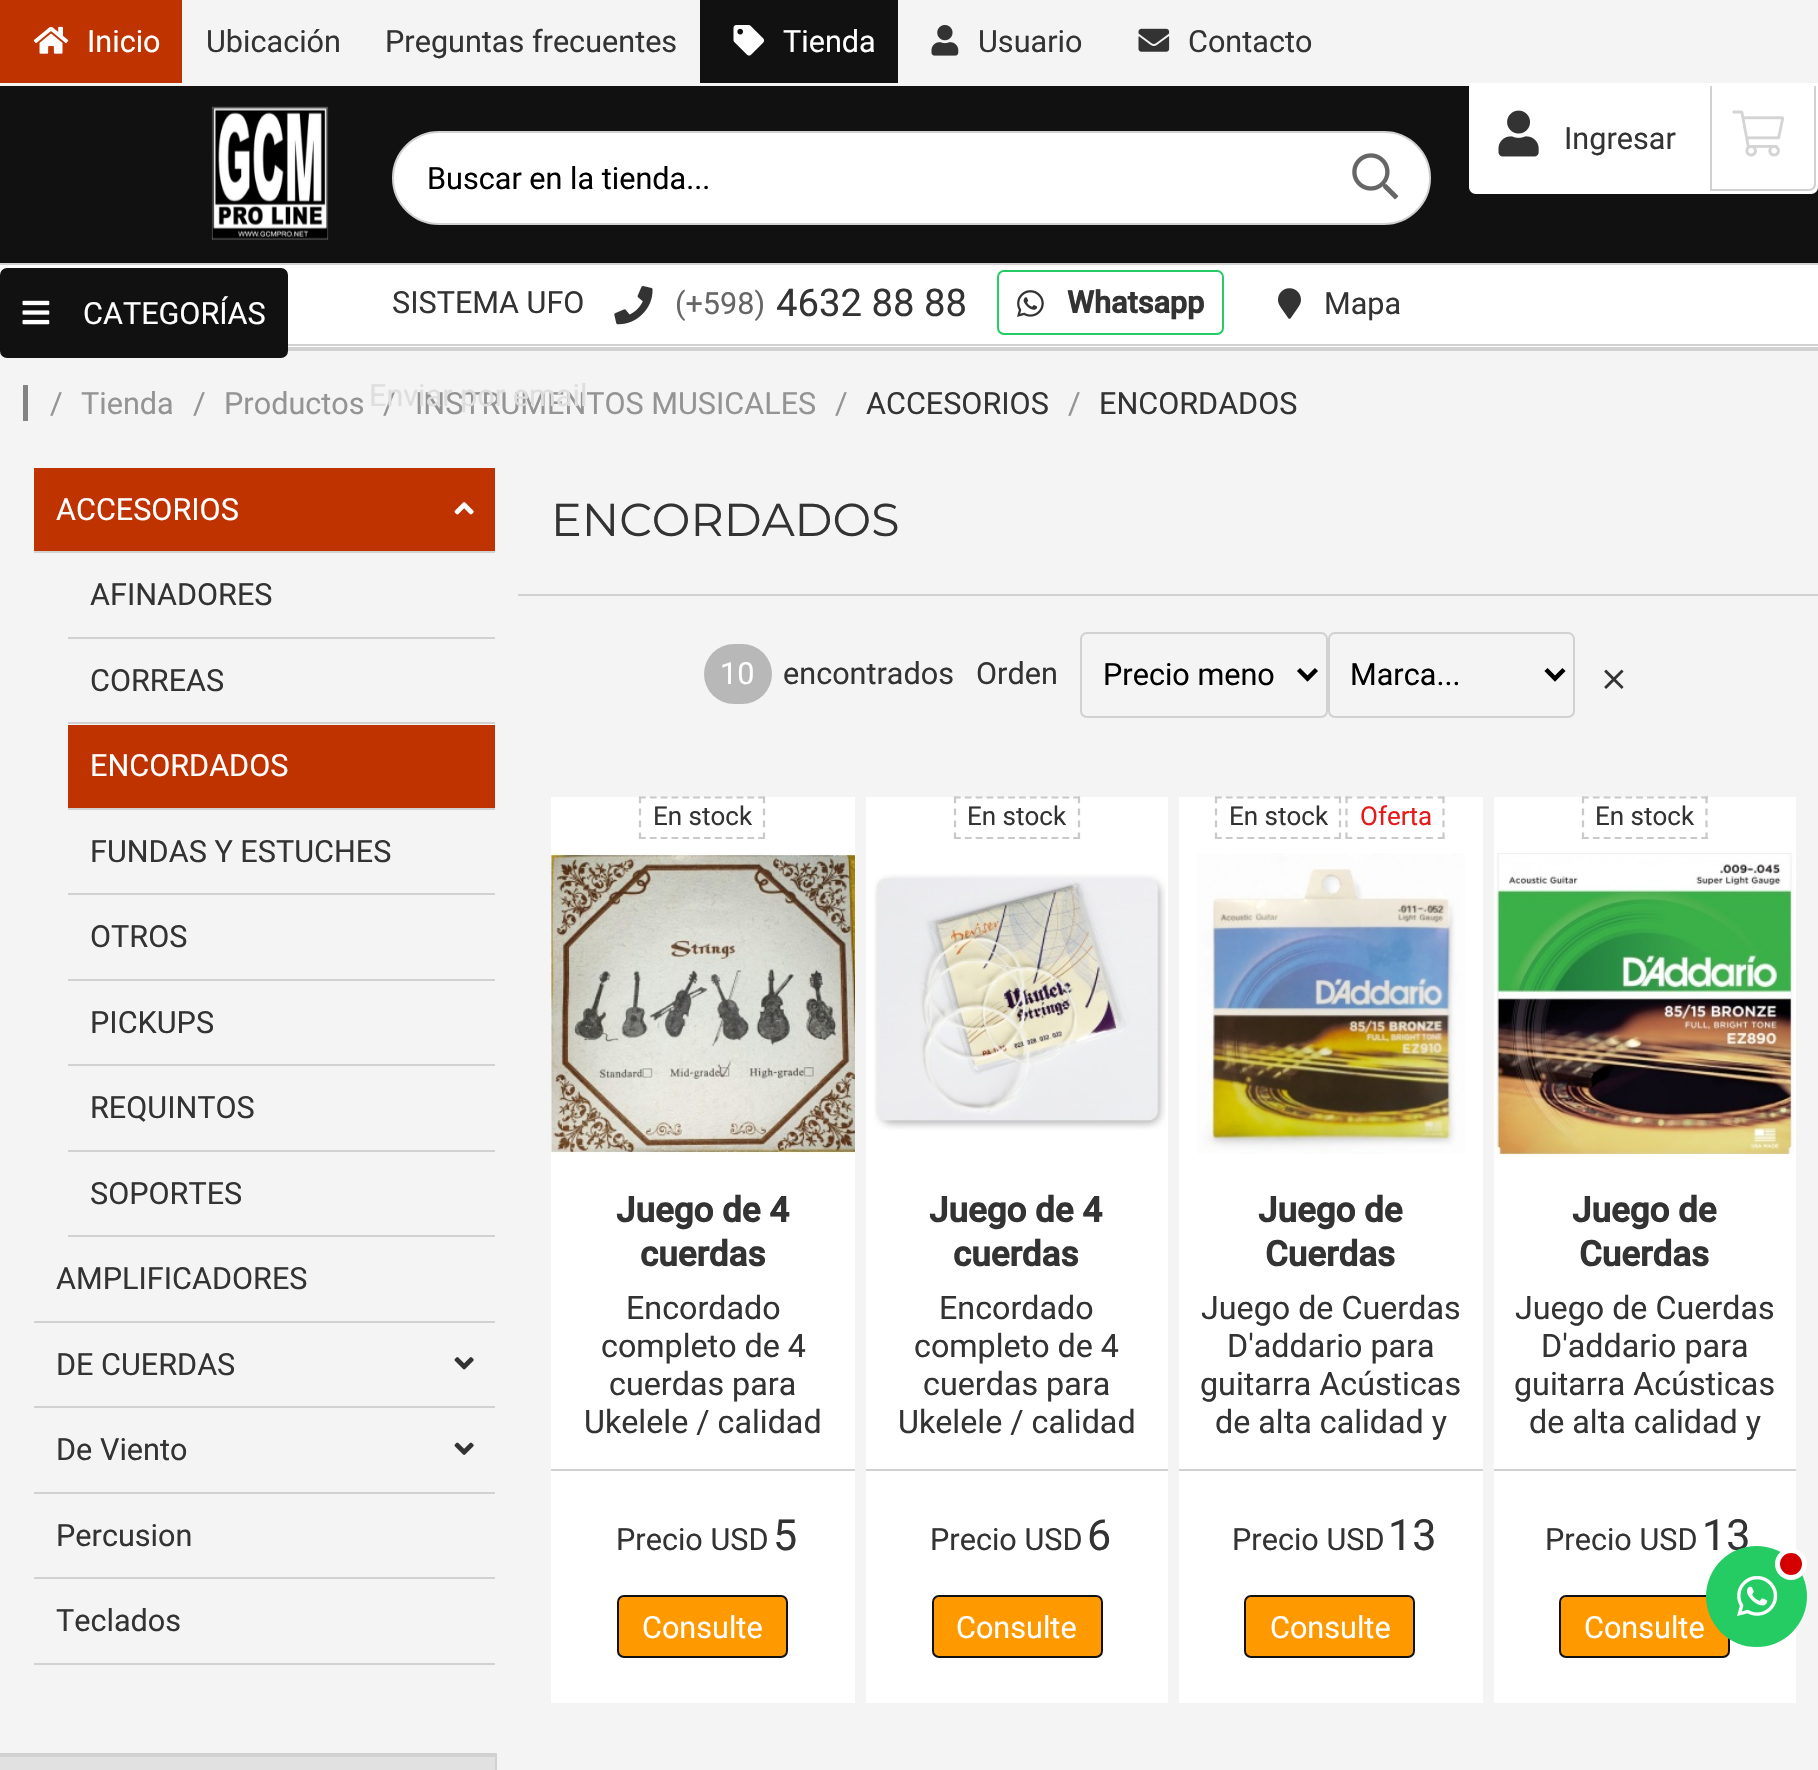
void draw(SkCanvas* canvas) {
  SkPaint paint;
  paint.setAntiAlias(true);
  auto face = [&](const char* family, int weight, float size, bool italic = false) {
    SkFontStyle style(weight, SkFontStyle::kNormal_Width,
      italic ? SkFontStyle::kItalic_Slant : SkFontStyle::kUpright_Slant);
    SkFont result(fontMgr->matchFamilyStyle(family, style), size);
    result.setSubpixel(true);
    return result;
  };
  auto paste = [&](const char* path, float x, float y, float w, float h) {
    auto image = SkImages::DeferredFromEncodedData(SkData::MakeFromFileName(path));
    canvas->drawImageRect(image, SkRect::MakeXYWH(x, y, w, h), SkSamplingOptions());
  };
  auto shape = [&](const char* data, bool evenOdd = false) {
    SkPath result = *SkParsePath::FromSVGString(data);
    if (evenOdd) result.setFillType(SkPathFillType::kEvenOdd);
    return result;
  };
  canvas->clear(0xfff4f4f4);
  paint.setColor(0xffbf3300);
  canvas->drawRect(SkRect::MakeXYWH(0, 0, 182, 83), paint);
  paste("img/1.png", 33, 26, 36, 28);
  paint.setColor(0xff111111);
  canvas->drawRect(SkRect::MakeXYWH(700, 0, 198, 83), paint);
  paste("img/2.png", 733, 25, 32, 31);
  paste("img/3.png", 931, 25, 28, 31);
  paste("img/4.png", 1138, 28, 32, 24);
  canvas->drawRect(SkRect::MakeXYWH(0, 86, 1818, 177), paint);
  paste("img/5.png", 211, 106, 118, 134);
  paint.setColor(0xffffffff);
  canvas->drawPath(shape("M1469 83H1818V187C1818 191 1815 194 1811 194H1476C1472 194 1469 191 1469 187Z"), paint);
  paste("img/6.png", 1498, 110, 41, 47);
  paint.setColor(0xffd1d1d1);
  canvas->drawPath(shape("M1710 86H1816V184C1816 188 1813 191 1809 191H1710ZM1712 86H1814V184C1814 187 1811 189 1809 189H1712Z", true), paint);
  paste("img/7.png", 1732, 110, 52, 47);
  paint.setColor(0xffffffff);
  canvas->drawRoundRect(SkRect::MakeXYWH(393, 132, 1037, 92), 46, 46, paint);
  paint.setStroke(true);
  paint.setStrokeWidth(2);
  paint.setColor(0xffd1d1d1);
  canvas->drawRoundRect(SkRect::MakeXYWH(393, 132, 1037, 92), 46, 46, paint);
  paste("img/8.png", 1352, 153, 47, 47);
  paint.setStroke(false);
  paint.setColor(0xffffffff);
  canvas->drawRect(SkRect::MakeXYWH(0, 265, 1818, 82), paint);
  paint.setColor(0xff111111);
  canvas->drawRoundRect(SkRect::MakeXYWH(0, 268, 288, 90), 7, 7, paint);
  paste("img/9.png", 22, 300, 28, 25);
  paint.setColor(0xffd1d1d1);
  canvas->drawRect(SkRect::MakeXYWH(0, 263, 1818, 2), paint);
  canvas->drawRect(SkRect::MakeXYWH(288, 344, 1530, 2), paint);
  paste("img/10.png", 614, 286, 39, 39);
  paint.setStroke(true);
  paint.setColor(0xff24cc63);
  canvas->drawRoundRect(SkRect::MakeXYWH(998, 271, 225, 63), 6, 6, paint);
  paste("img/11.png", 1017, 290, 27, 27);
  paste("img/12.png", 1278, 288, 23, 31);
  paint.setStroke(false);
  {
    const struct { float x, y, w, h; SkColor color; } items[] = {
      {288, 347, 1530, 4, 0xffd1d1d1},
      {23, 385, 5, 36, 0xff838383},
      {34, 551, 461, 2, 0xffd1d1d1},
      {34, 468, 461, 83, 0xffbf3300},
    };
    for (auto [x, y, w, h, color] : items) {
      paint.setColor(color);
      canvas->drawRect(SkRect::MakeXYWH(x, y, w, h), paint);
    }
  }
  paste("img/13.png", 454, 502, 20, 13);
  {
    const struct { float x, y, w, h; SkColor color; } items[] = {
      {68, 637, 427, 2, 0xffd1d1d1},
      {68, 722, 427, 2, 0xffd1d1d1},
      {68, 808, 427, 2, 0xffd1d1d1},
      {68, 725, 427, 83, 0xffbf3300},
      {68, 893, 427, 2, 0xffd1d1d1},
      {68, 979, 427, 2, 0xffd1d1d1},
      {68, 1064, 427, 2, 0xffd1d1d1},
      {68, 1150, 427, 2, 0xffd1d1d1},
      {68, 1235, 427, 2, 0xffd1d1d1},
      {34, 1321, 461, 2, 0xffd1d1d1},
      {34, 1406, 461, 2, 0xffd1d1d1},
    };
    for (auto [x, y, w, h, color] : items) {
      paint.setColor(color);
      canvas->drawRect(SkRect::MakeXYWH(x, y, w, h), paint);
    }
  }
  paste("img/14.png", 454, 1357, 20, 13);
  canvas->drawRect(SkRect::MakeXYWH(34, 1492, 461, 2), paint);
  paste("img/15.png", 454, 1442, 20, 13);
  {
    const struct { float x, y, w, h; SkColor color; } items[] = {
      {34, 1577, 461, 2, 0xffd1d1d1},
      {34, 1663, 461, 2, 0xffd1d1d1},
      {0, 1757, 495, 13, 0xffe1e1e1},
      {0, 1755, 495, 2, 0xffd1d1d1},
    };
    for (auto [x, y, w, h, color] : items) {
      paint.setColor(color);
      canvas->drawRect(SkRect::MakeXYWH(x, y, w, h), paint);
    }
  }
  paint.setStroke(true);
  canvas->drawRect(SkRect::MakeXYWH(-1, 1754, 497, 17), paint);
  paint.setStroke(false);
  canvas->drawRect(SkRect::MakeXYWH(518, 594, 1300, 2), paint);
  paint.setColor(0xffb8b8b8);
  canvas->drawRoundRect(SkRect::MakeXYWH(704, 644, 68, 60), 30, 30, paint);
  paint.setStroke(true);
  paint.setColor(0xffd1d1d1);
  canvas->drawRoundRect(SkRect::MakeXYWH(1081, 633, 246, 84), 6, 6, paint);
  paint.setStrokeWidth(4.5f);
  paint.setColor(0xff000000);
  canvas->drawPath(shape("M1298.5 669.5L1307.5 678.5L1316.5 669.5"), paint);
  paint.setStrokeWidth(2);
  paint.setColor(0xffd1d1d1);
  canvas->drawRoundRect(SkRect::MakeXYWH(1329, 633, 245, 84), 6, 6, paint);
  paint.setStrokeWidth(4.5f);
  paint.setColor(0xff000000);
  canvas->drawPath(shape("M1546 669.5L1555 678.5L1564 669.5"), paint);
  paste("img/16.png", 1604, 669, 20, 20);
  paint.setStroke(false);
  paint.setColor(0xffffffff);
  canvas->drawRect(SkRect::MakeXYWH(551, 797, 304, 906), paint);
  paint.setStroke(true);
  paint.setStrokeWidth(2.2f);
  paint.setColor(0xffc9c9c9);
  paint.setPathEffect(SkDashPathEffect::Make({{6.75f, 4.09f}}, 0));
  canvas->drawPath(shape("M639 797.5H765"), paint);
  paint.setPathEffect(nullptr);
  paint.setPathEffect(SkDashPathEffect::Make({{6.75f, 5.24f}}, 0));
  canvas->drawPath(shape("M764 796.5V839"), paint);
  paint.setPathEffect(nullptr);
  paint.setPathEffect(SkDashPathEffect::Make({{6.75f, 4.09f}}, 0));
  canvas->drawPath(shape("M639 838H765"), paint);
  paint.setPathEffect(nullptr);
  paint.setPathEffect(SkDashPathEffect::Make({{6.75f, 5.24f}}, 0));
  canvas->drawPath(shape("M640 796.5V839"), paint);
  paint.setPathEffect(nullptr);
  paste("img/17.png", 551, 853, 304, 301);
  paint.setStroke(false);
  paint.setColor(0xffd1d1d1);
  canvas->drawRect(SkRect::MakeXYWH(551, 1469, 304, 2), paint);
  paint.setColor(0xffff9900);
  canvas->drawRoundRect(SkRect::MakeXYWH(618, 1596, 169, 61), 6, 6, paint);
  paint.setStroke(true);
  paint.setStrokeWidth(2);
  paint.setColor(0xff111111);
  canvas->drawRoundRect(SkRect::MakeXYWH(618, 1596, 169, 61), 6, 6, paint);
  paint.setStroke(false);
  paint.setColor(0xffffffff);
  canvas->drawRect(SkRect::MakeXYWH(866, 797, 302, 906), paint);
  paint.setStroke(true);
  paint.setStrokeWidth(2.2f);
  paint.setColor(0xffc9c9c9);
  paint.setPathEffect(SkDashPathEffect::Make({{6.75f, 4.09f}}, 0));
  canvas->drawPath(shape("M954 797.5H1080"), paint);
  paint.setPathEffect(nullptr);
  paint.setPathEffect(SkDashPathEffect::Make({{6.75f, 5.24f}}, 0));
  canvas->drawPath(shape("M1079 796.5V839"), paint);
  paint.setPathEffect(nullptr);
  paint.setPathEffect(SkDashPathEffect::Make({{6.75f, 4.09f}}, 0));
  canvas->drawPath(shape("M954 838H1080"), paint);
  paint.setPathEffect(nullptr);
  paint.setPathEffect(SkDashPathEffect::Make({{6.75f, 5.24f}}, 0));
  canvas->drawPath(shape("M955 796.5V839"), paint);
  paint.setPathEffect(nullptr);
  paste("img/18.png", 874, 874, 292, 256);
  paint.setStroke(false);
  paint.setColor(0xffd1d1d1);
  canvas->drawRect(SkRect::MakeXYWH(866, 1469, 302, 2), paint);
  paint.setColor(0xffff9900);
  canvas->drawRoundRect(SkRect::MakeXYWH(933, 1596, 169, 61), 6, 6, paint);
  paint.setStroke(true);
  paint.setStrokeWidth(2);
  paint.setColor(0xff111111);
  canvas->drawRoundRect(SkRect::MakeXYWH(933, 1596, 169, 61), 6, 6, paint);
  paint.setStroke(false);
  paint.setColor(0xffffffff);
  canvas->drawRect(SkRect::MakeXYWH(1179, 797, 304, 906), paint);
  paint.setStroke(true);
  paint.setStrokeWidth(2.2f);
  paint.setColor(0xffc9c9c9);
  paint.setPathEffect(SkDashPathEffect::Make({{6.75f, 4.09f}}, 0));
  canvas->drawPath(shape("M1215 797.5H1341"), paint);
  paint.setPathEffect(nullptr);
  paint.setPathEffect(SkDashPathEffect::Make({{6.75f, 5.24f}}, 0));
  canvas->drawPath(shape("M1340 796.5V839"), paint);
  paint.setPathEffect(nullptr);
  paint.setPathEffect(SkDashPathEffect::Make({{6.75f, 4.09f}}, 0));
  canvas->drawPath(shape("M1215 838H1341"), paint);
  paint.setPathEffect(nullptr);
  paint.setPathEffect(SkDashPathEffect::Make({{6.75f, 5.24f}}, 0));
  canvas->drawPath(shape("M1216 796.5V839"), paint);
  paint.setPathEffect(nullptr);
  paint.setPathEffect(SkDashPathEffect::Make({{6.75f, 4.77f}}, 0));
  canvas->drawPath(shape("M1345.5 797.5H1444.5"), paint);
  paint.setPathEffect(nullptr);
  paint.setPathEffect(SkDashPathEffect::Make({{6.75f, 5.24f}}, 0));
  canvas->drawPath(shape("M1443.5 796.5V839"), paint);
  paint.setPathEffect(nullptr);
  paint.setPathEffect(SkDashPathEffect::Make({{6.75f, 4.77f}}, 0));
  canvas->drawPath(shape("M1345.5 838H1444.5"), paint);
  paint.setPathEffect(nullptr);
  paint.setPathEffect(SkDashPathEffect::Make({{6.75f, 5.24f}}, 0));
  canvas->drawPath(shape("M1346.5 796.5V839"), paint);
  paint.setPathEffect(nullptr);
  paste("img/19.png", 1197, 853, 268, 301);
  paint.setStroke(false);
  paint.setColor(0xffd1d1d1);
  canvas->drawRect(SkRect::MakeXYWH(1179, 1469, 304, 2), paint);
  paint.setColor(0xffff9900);
  canvas->drawRoundRect(SkRect::MakeXYWH(1245, 1596, 169, 61), 6, 6, paint);
  paint.setStroke(true);
  paint.setStrokeWidth(2);
  paint.setColor(0xff111111);
  canvas->drawRoundRect(SkRect::MakeXYWH(1245, 1596, 169, 61), 6, 6, paint);
  paint.setStroke(false);
  paint.setColor(0xffffffff);
  canvas->drawRect(SkRect::MakeXYWH(1494, 797, 302, 906), paint);
  paint.setStroke(true);
  paint.setStrokeWidth(2.2f);
  paint.setColor(0xffc9c9c9);
  paint.setPathEffect(SkDashPathEffect::Make({{6.75f, 4.09f}}, 0));
  canvas->drawPath(shape("M1582 797.5H1708"), paint);
  paint.setPathEffect(nullptr);
  paint.setPathEffect(SkDashPathEffect::Make({{6.75f, 5.24f}}, 0));
  canvas->drawPath(shape("M1706.5 796.5V839"), paint);
  paint.setPathEffect(nullptr);
  paint.setPathEffect(SkDashPathEffect::Make({{6.75f, 4.09f}}, 0));
  canvas->drawPath(shape("M1582 838H1708"), paint);
  paint.setPathEffect(nullptr);
  paint.setPathEffect(SkDashPathEffect::Make({{6.75f, 5.24f}}, 0));
  canvas->drawPath(shape("M1583 796.5V839"), paint);
  paint.setPathEffect(nullptr);
  paste("img/20.png", 1494, 853, 301, 302);
  paint.setStroke(false);
  paint.setColor(0xffd1d1d1);
  canvas->drawRect(SkRect::MakeXYWH(1494, 1469, 302, 2), paint);
  paint.setColor(0xffff9900);
  canvas->drawRoundRect(SkRect::MakeXYWH(1560, 1596, 169, 61), 6, 6, paint);
  paint.setStroke(true);
  paint.setStrokeWidth(2);
  paint.setColor(0xff111111);
  canvas->drawRoundRect(SkRect::MakeXYWH(1560, 1596, 169, 61), 6, 6, paint);
  auto f0 = face("Roboto", 400, 30.6f);
  paint.setStroke(false);
  paint.setColor(0xffffffff);
  canvas->drawString("Inicio", 87, 52, f0, paint);
  paint.setColor(0xff333333);
  canvas->drawString("Ubicación", 206, 52, f0, paint);
  canvas->drawString("Preguntas frecuentes", 385, 52, f0, paint);
  paint.setColor(0xffffffff);
  canvas->drawString("Tienda", 783, 52, f0, paint);
  paint.setColor(0xff333333);
  {
    const struct { const char* s; float x, y; } items[] = {
      {"Usuario", 978, 52},
      {"Contacto", 1188, 52},
      {"Ingresar", 1564, 149},
    };
    for (auto [s, x, y] : items) {
      canvas->drawString(s, x, y, f0, paint);
    }
  }
  paint.setColor(0xff000000);
  canvas->drawString("Buscar en la tienda...", 427, 189, f0, paint);
  paint.setColor(0xffffffff);
  canvas->drawString("CATEGORÍAS", 83, 324, f0, paint);
  paint.setColor(0xff333333);
  canvas->drawString("SISTEMA UFO", 392, 313, f0, paint);
  paint.setColor(0xff666666);
  canvas->drawString("(+598)", 675, 314, f0, paint);
  auto f1 = face("Roboto", 400, 38.25f);
  paint.setColor(0xff333333);
  canvas->drawString("4632 88 88", 776, 316, f1, paint);
  auto f2 = face("Roboto", 700, 30.6f);
  canvas->drawString("Whatsapp", 1067, 313, f2, paint);
  canvas->drawString("Mapa", 1324, 314, f0, paint);
  paint.setColor(0xff949494);
  {
    const struct { const char* s; float x, y; } items[] = {
      {"/", 50, 414},
      {"Tienda", 81, 414},
      {"/", 193, 414},
      {"Productos", 224, 414},
      {"/", 383, 414},
      {"INSTRUMENTOS MUSICALES", 415, 414},
    };
    for (auto [s, x, y] : items) {
      canvas->drawString(s, x, y, f0, paint);
    }
  }
  paint.setColor(0xffdedede);
  canvas->drawString("Enviar por email", 369, 406, f0, paint);
  paint.setColor(0xff949494);
  canvas->drawString("/", 835, 414, f0, paint);
  paint.setColor(0xff333333);
  canvas->drawString("ACCESORIOS", 866, 414, f0, paint);
  paint.setColor(0xff949494);
  canvas->drawString("/", 1068, 414, f0, paint);
  paint.setColor(0xff333333);
  canvas->drawString("ENCORDADOS", 1099, 414, f0, paint);
  paint.setColor(0xffffffff);
  canvas->drawString("ACCESORIOS", 56, 520, f0, paint);
  paint.setColor(0xff333333);
  canvas->drawString("AFINADORES", 90, 605, f0, paint);
  canvas->drawString("CORREAS", 90, 691, f0, paint);
  paint.setColor(0xffffffff);
  canvas->drawString("ENCORDADOS", 90, 776, f0, paint);
  paint.setColor(0xff333333);
  {
    const struct { const char* s; float x, y; } items[] = {
      {"FUNDAS Y ESTUCHES", 90, 862},
      {"OTROS", 90, 947},
      {"PICKUPS", 90, 1033},
      {"REQUINTOS", 90, 1118},
      {"SOPORTES", 90, 1204},
      {"AMPLIFICADORES", 56, 1289},
      {"DE CUERDAS", 56, 1375},
      {"De Viento", 56, 1460},
      {"Percusion", 56, 1546},
      {"Teclados", 56, 1631},
    };
    for (auto [s, x, y] : items) {
      canvas->drawString(s, x, y, f0, paint);
    }
  }
  auto f3 = face("Montserrat", 400, 46);
  canvas->drawString("ENCORDADOS", 551, 536, f3, paint);
  paint.setColor(0xffffffff);
  canvas->drawString("10", 720, 684, f0, paint);
  paint.setColor(0xff333333);
  canvas->drawString("encontrados", 783, 684, f0, paint);
  canvas->drawString("Orden", 976, 684, f0, paint);
  paint.setColor(0xff000000);
  canvas->drawString("Precio meno", 1103, 685, f0, paint);
  canvas->drawString("Marca...", 1350, 685, f0, paint);
  auto f4 = face("Roboto", 400, 26);
  paint.setColor(0xff333333);
  canvas->drawString("En stock", 653, 825, f4, paint);
  auto f5 = face("Roboto", 700, 35);
  canvas->drawString("Juego de 4", 616, 1222, f5, paint);
  canvas->drawString("cuerdas", 640, 1266, f5, paint);
  auto f6 = face("Roboto", 400, 32.25f);
  {
    const struct { const char* s; float x, y; } items[] = {
      {"Encordado", 626, 1319},
      {"completo de 4", 601, 1357},
      {"cuerdas para", 609, 1395},
      {"Ukelele / calidad", 584, 1433},
    };
    for (auto [s, x, y] : items) {
      canvas->drawString(s, x, y, f6, paint);
    }
  }
  canvas->drawString("Precio USD", 616, 1550, f0, paint);
  auto f7 = face("Roboto", 400, 43);
  canvas->drawString("5", 773, 1550, f7, paint);
  paint.setColor(0xffffffff);
  canvas->drawString("Consulte", 642, 1638, f0, paint);
  paint.setColor(0xff333333);
  canvas->drawString("En stock", 967, 825, f4, paint);
  canvas->drawString("Juego de 4", 929, 1222, f5, paint);
  canvas->drawString("cuerdas", 953, 1266, f5, paint);
  {
    const struct { const char* s; float x, y; } items[] = {
      {"Encordado", 939, 1319},
      {"completo de 4", 914, 1357},
      {"cuerdas para", 923, 1395},
      {"Ukelele / calidad", 898, 1433},
    };
    for (auto [s, x, y] : items) {
      canvas->drawString(s, x, y, f6, paint);
    }
  }
  canvas->drawString("Precio USD", 930, 1550, f0, paint);
  canvas->drawString("6", 1087, 1550, f7, paint);
  paint.setColor(0xffffffff);
  canvas->drawString("Consulte", 956, 1638, f0, paint);
  paint.setColor(0xff333333);
  canvas->drawString("En stock", 1229, 825, f4, paint);
  paint.setColor(0xffe81919);
  canvas->drawString("Oferta", 1360, 825, f4, paint);
  paint.setColor(0xff333333);
  canvas->drawString("Juego de", 1258, 1222, f5, paint);
  canvas->drawString("Cuerdas", 1265, 1266, f5, paint);
  {
    const struct { const char* s; float x, y; } items[] = {
      {"Juego de Cuerdas", 1201, 1319},
      {"D'addario para", 1227, 1357},
      {"guitarra Acústicas", 1200, 1395},
      {"de alta calidad y", 1215, 1433},
    };
    for (auto [s, x, y] : items) {
      canvas->drawString(s, x, y, f6, paint);
    }
  }
  canvas->drawString("Precio USD", 1232, 1550, f0, paint);
  canvas->drawString("13", 1388, 1550, f7, paint);
  paint.setColor(0xffffffff);
  canvas->drawString("Consulte", 1270, 1638, f0, paint);
  paint.setColor(0xff333333);
  canvas->drawString("En stock", 1595, 825, f4, paint);
  canvas->drawString("Juego de", 1572, 1222, f5, paint);
  canvas->drawString("Cuerdas", 1579, 1266, f5, paint);
  {
    const struct { const char* s; float x, y; } items[] = {
      {"Juego de Cuerdas", 1515, 1319},
      {"D'addario para", 1541, 1357},
      {"guitarra Acústicas", 1514, 1395},
      {"de alta calidad y", 1529, 1433},
    };
    for (auto [s, x, y] : items) {
      canvas->drawString(s, x, y, f6, paint);
    }
  }
  canvas->drawString("Precio USD", 1545, 1550, f0, paint);
  canvas->drawString("13", 1702, 1550, f7, paint);
  paint.setColor(0xffffffff);
  canvas->drawString("Consulte", 1584, 1638, f0, paint);
  paint.setColor(0xff24cc63);
  canvas->drawCircle(1756.5f, 1596.5f, 50.5f, paint);
  paste("img/21.png", 1737, 1576, 41, 41);
  paint.setColor(0xffd40000);
  canvas->drawCircle(1791, 1564, 13.5f, paint);
  paint.setStroke(true);
  paint.setStrokeWidth(5);
  paint.setColor(0xffffffff);
  canvas->drawCircle(1791, 1564, 13.5f, paint);
}
